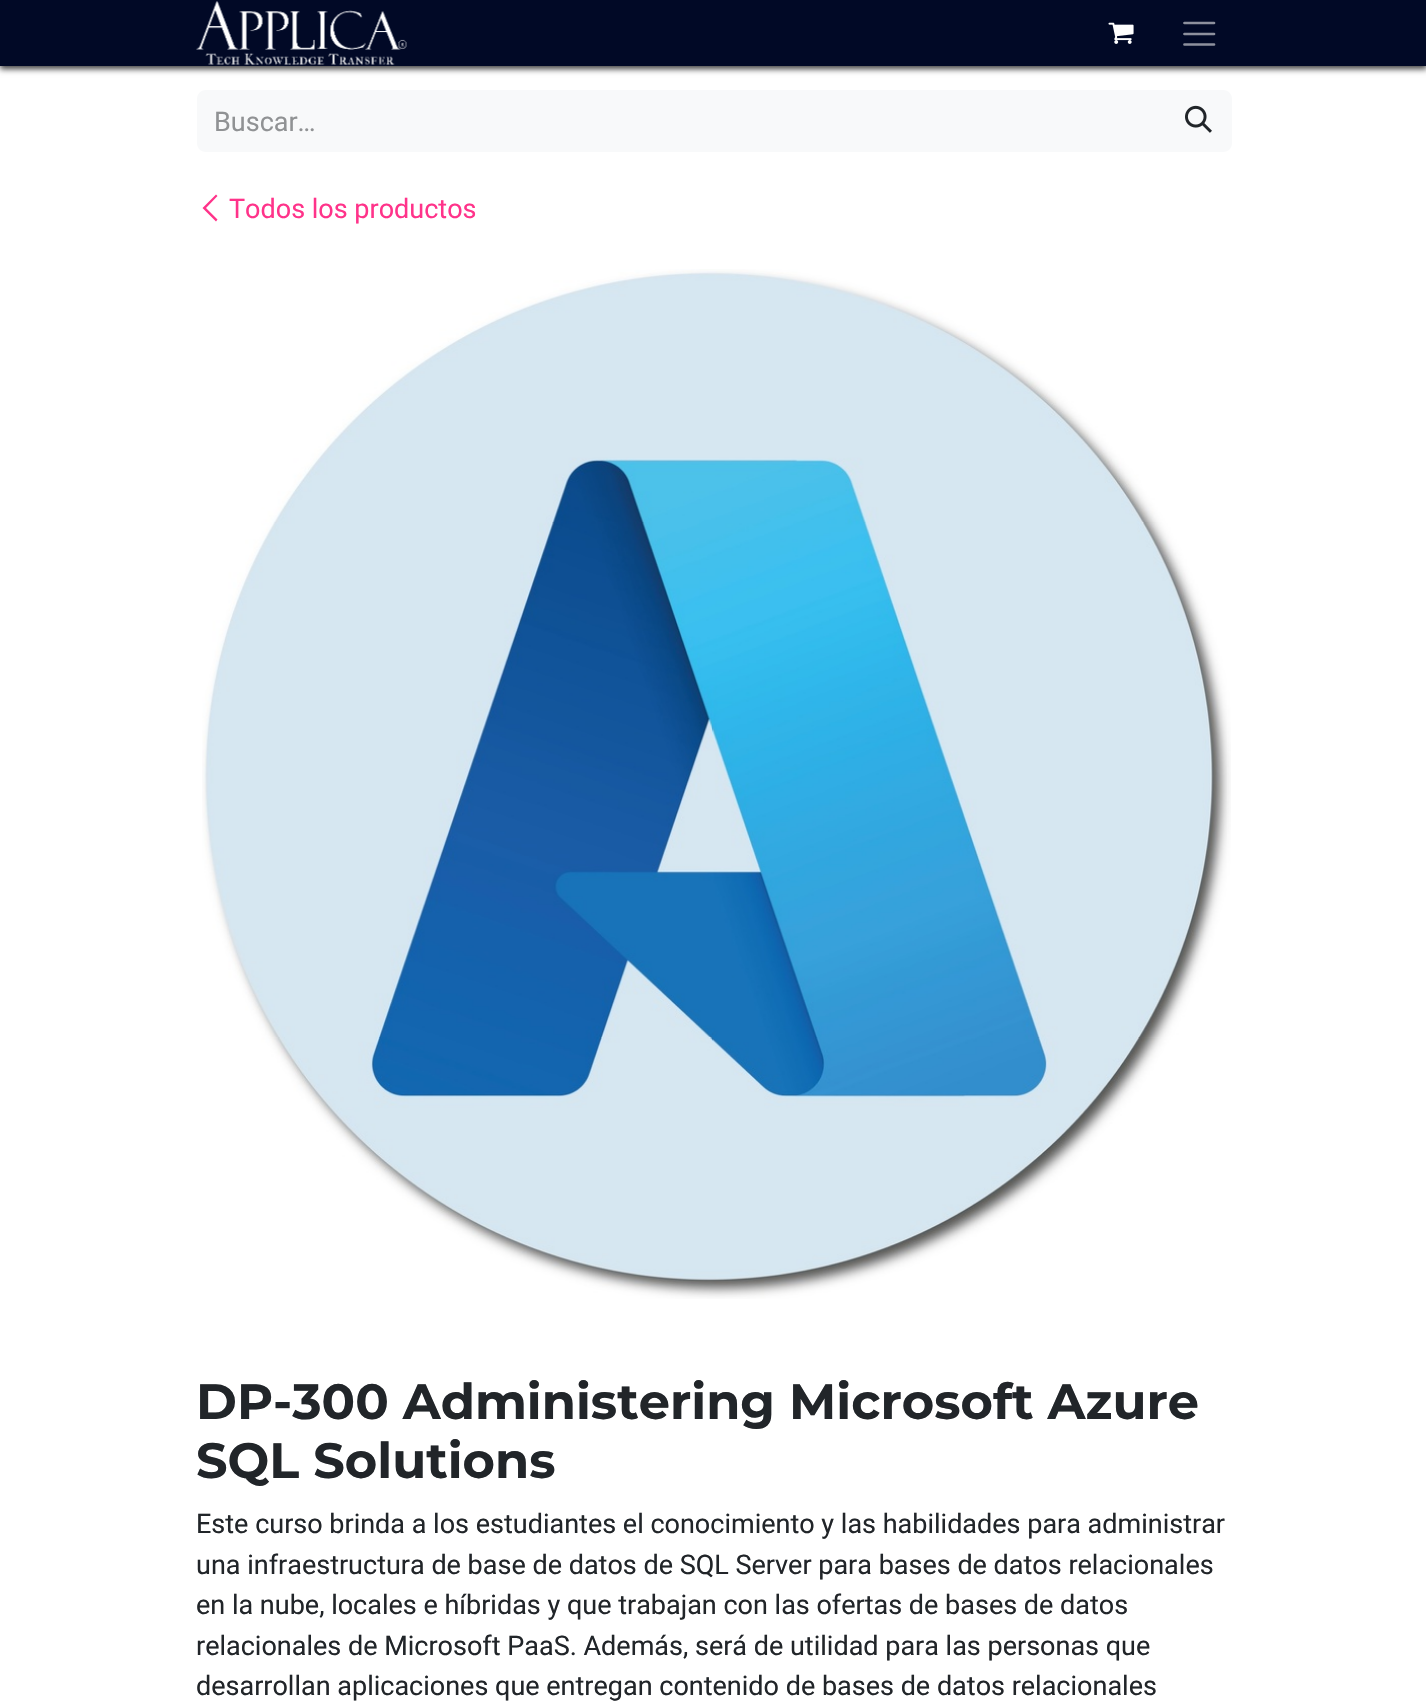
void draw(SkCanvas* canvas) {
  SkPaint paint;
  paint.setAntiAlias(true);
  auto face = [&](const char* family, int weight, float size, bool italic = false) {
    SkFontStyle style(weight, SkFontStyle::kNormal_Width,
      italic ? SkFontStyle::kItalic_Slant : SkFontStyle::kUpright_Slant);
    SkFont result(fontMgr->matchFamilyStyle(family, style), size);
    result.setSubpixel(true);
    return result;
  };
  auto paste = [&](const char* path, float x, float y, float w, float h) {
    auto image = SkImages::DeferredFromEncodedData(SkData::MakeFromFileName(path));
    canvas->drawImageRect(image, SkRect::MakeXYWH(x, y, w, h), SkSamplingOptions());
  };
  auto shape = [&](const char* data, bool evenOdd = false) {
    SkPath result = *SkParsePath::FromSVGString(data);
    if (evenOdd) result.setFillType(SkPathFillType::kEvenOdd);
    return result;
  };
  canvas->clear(0xffffffff);
  paint.setColor(0xbf000000);
  paint.setMaskFilter(SkMaskFilter::MakeBlur(kNormal_SkBlurStyle, 3));
  canvas->drawRect(SkRect::MakeXYWH(0, 3, 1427, 66), paint);
  paint.setMaskFilter(nullptr);
  paint.setColor(0xff010926);
  canvas->drawRect(SkRect::MakeXYWH(0, 0, 1426, 66), paint);
  paste("img/1.png", 196, 1, 211, 64);
  paste("img/2.png", 1108, 22, 26, 22);
  paint.setStroke(true);
  paint.setStrokeWidth(2.7f);
  paint.setStrokeCap(SkPaint::kRound_Cap);
  paint.setColor(0xff8d909d);
  canvas->drawPath(shape("M1184.5 23H1214M1184.5 34H1214M1184.5 44.5H1214"), paint);
  paint.setStroke(false);
  paint.setColor(0xfff8f9fa);
  canvas->drawPath(shape("M206 90H1167V152H206C201 152 197 148 197 143V99C197 94 201 90 206 90Z"), paint);
  canvas->drawPath(shape("M1166 90H1223C1228 90 1232 94 1232 99V143C1232 148 1228 152 1223 152H1166Z"), paint);
  paste("img/3.png", 1185, 105, 27, 28);
  paint.setColor(0xffff338a);
  canvas->drawPath(shape("M202.5 208L216 194.5L217.5 196L206 208L217.5 219.5L216 221.5Z"), paint);
  paste("img/4.png", 202, 269, 1029, 1030);
  auto f0 = face("Roboto", 400, 27);
  paint.setColor(0xff909294);
  canvas->drawString("Buscar…", 214, 131, f0, paint);
  paint.setColor(0xffff338a);
  canvas->drawString("Todos los productos", 229, 218, f0, paint);
  auto f1 = face("Montserrat", 700, 49.5f);
  paint.setColor(0xff212529);
  canvas->drawString("DP-300 Administering Microsoft Azure", 196, 1419, f1, paint);
  canvas->drawString("SQL Solutions", 196, 1478, f1, paint);
  {
    const struct { const char* s; float x, y; } items[] = {
      {"Este curso brinda a los estudiantes el conocimiento y las habilidades para administrar", 196, 1533},
      {"una infraestructura de base de datos de SQL Server para bases de datos relacionales", 196, 1574},
      {"en la nube, locales e híbridas y que trabajan con las ofertas de bases de datos", 196, 1614},
      {"relacionales de Microsoft PaaS. Además, será de utilidad para las personas que", 196, 1655},
      {"desarrollan aplicaciones que entregan contenido de bases de datos relacionales", 196, 1695},
    };
    for (auto [s, x, y] : items) {
      canvas->drawString(s, x, y, f0, paint);
    }
  }
}
